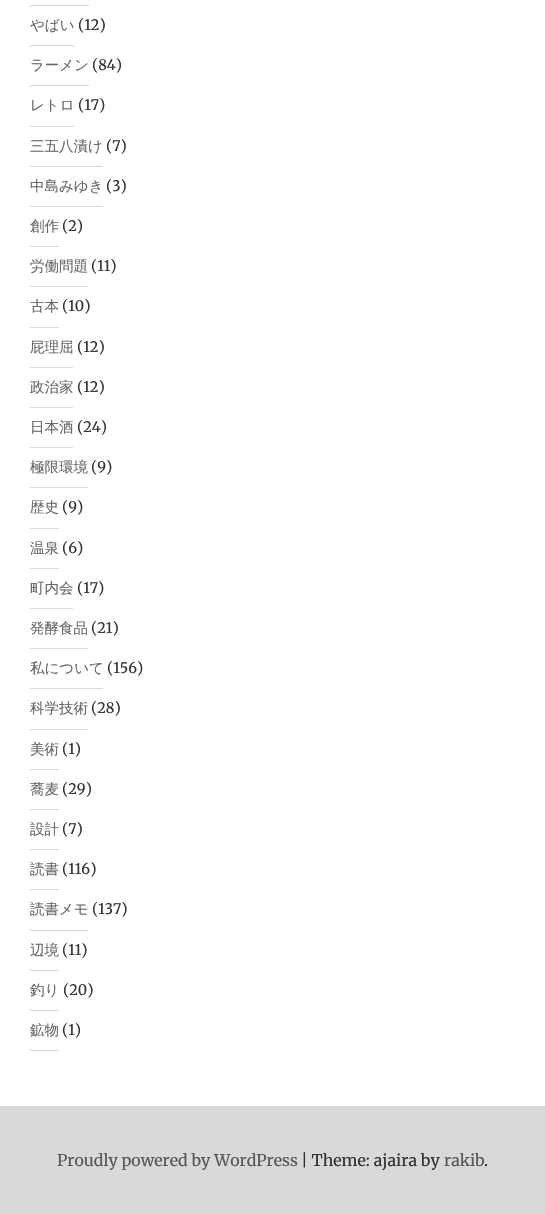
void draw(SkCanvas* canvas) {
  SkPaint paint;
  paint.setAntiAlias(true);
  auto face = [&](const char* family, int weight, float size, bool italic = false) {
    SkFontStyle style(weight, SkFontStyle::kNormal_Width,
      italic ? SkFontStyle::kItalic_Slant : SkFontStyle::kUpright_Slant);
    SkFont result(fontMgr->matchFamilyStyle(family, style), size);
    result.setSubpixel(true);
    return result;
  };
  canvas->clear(0xffffffff);
  {
    const struct { float x, y, w, h; SkColor color; } items[] = {
      {30, 5, 59, 1, 0xffd9d9d9},
      {30, 45, 44, 1, 0xffd9d9d9},
      {30, 85, 59, 1, 0xffd9d9d9},
      {30, 126, 44, 1, 0xffd9d9d9},
      {30, 166, 72, 1, 0xffd9d9d9},
      {30, 206, 73, 1, 0xffd9d9d9},
      {30, 246, 29, 1, 0xffd9d9d9},
      {30, 286, 58, 1, 0xffd9d9d9},
      {30, 327, 29, 1, 0xffd9d9d9},
      {30, 367, 43, 1, 0xffd9d9d9},
      {30, 407, 43, 1, 0xffd9d9d9},
      {30, 447, 43, 1, 0xffd9d9d9},
      {30, 487, 58, 1, 0xffd9d9d9},
      {30, 528, 29, 1, 0xffd9d9d9},
      {30, 568, 29, 1, 0xffd9d9d9},
      {30, 608, 43, 1, 0xffd9d9d9},
      {30, 648, 58, 1, 0xffd9d9d9},
      {30, 688, 73, 1, 0xffd9d9d9},
      {30, 729, 58, 1, 0xffd9d9d9},
      {30, 769, 29, 1, 0xffd9d9d9},
      {30, 809, 29, 1, 0xffd9d9d9},
      {30, 849, 29, 1, 0xffd9d9d9},
      {30, 889, 29, 1, 0xffd9d9d9},
      {30, 930, 58, 1, 0xffd9d9d9},
      {30, 970, 29, 1, 0xffd9d9d9},
      {30, 1010, 29, 1, 0xffd9d9d9},
      {30, 1050, 29, 1, 0xffd9d9d9},
      {0, 1106, 545, 108, 0xffd9d9d9},
    };
    for (auto [x, y, w, h, color] : items) {
      paint.setColor(color);
      canvas->drawRect(SkRect::MakeXYWH(x, y, w, h), paint);
    }
  }
  auto f0 = face("WenQuanYi Zen Hei", 500, 14.5f);
  paint.setColor(0xff666666);
  canvas->drawString("やばい", 30, 30, f0, paint);
  auto f1 = face("Merriweather", 300, 14.5f);
  paint.setColor(0xff333333);
  canvas->drawString("(12)", 78, 30, f1, paint);
  paint.setColor(0xff666666);
  canvas->drawString("ラーメン", 30, 70, f0, paint);
  paint.setColor(0xff333333);
  canvas->drawString("(84)", 92, 70, f1, paint);
  paint.setColor(0xff666666);
  canvas->drawString("レトロ", 30, 110, f0, paint);
  paint.setColor(0xff333333);
  canvas->drawString("(17)", 78, 110, f1, paint);
  paint.setColor(0xff666666);
  canvas->drawString("三五八漬け", 30, 151, f0, paint);
  paint.setColor(0xff333333);
  canvas->drawString("(7)", 106, 151, f1, paint);
  paint.setColor(0xff666666);
  canvas->drawString("中島みゆき", 30, 191, f0, paint);
  paint.setColor(0xff333333);
  canvas->drawString("(3)", 106, 191, f1, paint);
  paint.setColor(0xff666666);
  canvas->drawString("創作", 30, 231, f0, paint);
  paint.setColor(0xff333333);
  canvas->drawString("(2)", 62, 231, f1, paint);
  paint.setColor(0xff666666);
  canvas->drawString("労働問題", 30, 271, f0, paint);
  paint.setColor(0xff333333);
  canvas->drawString("(11)", 91, 271, f1, paint);
  paint.setColor(0xff666666);
  canvas->drawString("古本", 30, 311, f0, paint);
  paint.setColor(0xff333333);
  canvas->drawString("(10)", 62, 311, f1, paint);
  paint.setColor(0xff666666);
  canvas->drawString("屁理屈", 30, 352, f0, paint);
  paint.setColor(0xff333333);
  canvas->drawString("(12)", 77, 352, f1, paint);
  paint.setColor(0xff666666);
  canvas->drawString("政治家", 30, 392, f0, paint);
  paint.setColor(0xff333333);
  canvas->drawString("(12)", 77, 392, f1, paint);
  paint.setColor(0xff666666);
  canvas->drawString("日本酒", 30, 432, f0, paint);
  paint.setColor(0xff333333);
  canvas->drawString("(24)", 77, 432, f1, paint);
  paint.setColor(0xff666666);
  canvas->drawString("極限環境", 30, 472, f0, paint);
  paint.setColor(0xff333333);
  canvas->drawString("(9)", 91, 472, f1, paint);
  paint.setColor(0xff666666);
  canvas->drawString("歴史", 30, 512, f0, paint);
  paint.setColor(0xff333333);
  canvas->drawString("(9)", 62, 512, f1, paint);
  paint.setColor(0xff666666);
  canvas->drawString("温泉", 30, 553, f0, paint);
  paint.setColor(0xff333333);
  canvas->drawString("(6)", 62, 553, f1, paint);
  paint.setColor(0xff666666);
  canvas->drawString("町内会", 30, 593, f0, paint);
  paint.setColor(0xff333333);
  canvas->drawString("(17)", 77, 593, f1, paint);
  paint.setColor(0xff666666);
  canvas->drawString("発酵食品", 30, 633, f0, paint);
  paint.setColor(0xff333333);
  canvas->drawString("(21)", 91, 633, f1, paint);
  paint.setColor(0xff666666);
  canvas->drawString("私について", 30, 673, f0, paint);
  paint.setColor(0xff333333);
  canvas->drawString("(156)", 107, 673, f1, paint);
  paint.setColor(0xff666666);
  canvas->drawString("科学技術", 30, 713, f0, paint);
  paint.setColor(0xff333333);
  canvas->drawString("(28)", 91, 713, f1, paint);
  paint.setColor(0xff666666);
  canvas->drawString("美術", 30, 754, f0, paint);
  paint.setColor(0xff333333);
  canvas->drawString("(1)", 62, 754, f1, paint);
  paint.setColor(0xff666666);
  canvas->drawString("蕎麦", 30, 794, f0, paint);
  paint.setColor(0xff333333);
  canvas->drawString("(29)", 62, 794, f1, paint);
  paint.setColor(0xff666666);
  canvas->drawString("設計", 30, 834, f0, paint);
  paint.setColor(0xff333333);
  canvas->drawString("(7)", 62, 834, f1, paint);
  paint.setColor(0xff666666);
  canvas->drawString("読書", 30, 874, f0, paint);
  paint.setColor(0xff333333);
  canvas->drawString("(116)", 62, 874, f1, paint);
  paint.setColor(0xff666666);
  canvas->drawString("読書メモ", 30, 914, f0, paint);
  paint.setColor(0xff333333);
  canvas->drawString("(137)", 92, 914, f1, paint);
  paint.setColor(0xff666666);
  canvas->drawString("辺境", 30, 955, f0, paint);
  paint.setColor(0xff333333);
  canvas->drawString("(11)", 62, 955, f1, paint);
  paint.setColor(0xff666666);
  canvas->drawString("釣り", 30, 995, f0, paint);
  paint.setColor(0xff333333);
  canvas->drawString("(20)", 63, 995, f1, paint);
  paint.setColor(0xff666666);
  canvas->drawString("鉱物", 30, 1035, f0, paint);
  paint.setColor(0xff333333);
  canvas->drawString("(1)", 62, 1035, f1, paint);
  auto f2 = face("Merriweather", 300, 16);
  paint.setColor(0xff575757);
  canvas->drawString("Proudly powered by WordPress", 57, 1166, f2, paint);
  paint.setColor(0xff333333);
  canvas->drawString("| Theme: ajaira by", 301, 1166, f2, paint);
  paint.setColor(0xff575757);
  canvas->drawString("rakib", 444, 1166, f2, paint);
  paint.setColor(0xff333333);
  canvas->drawString(".", 484, 1166, f2, paint);
}
